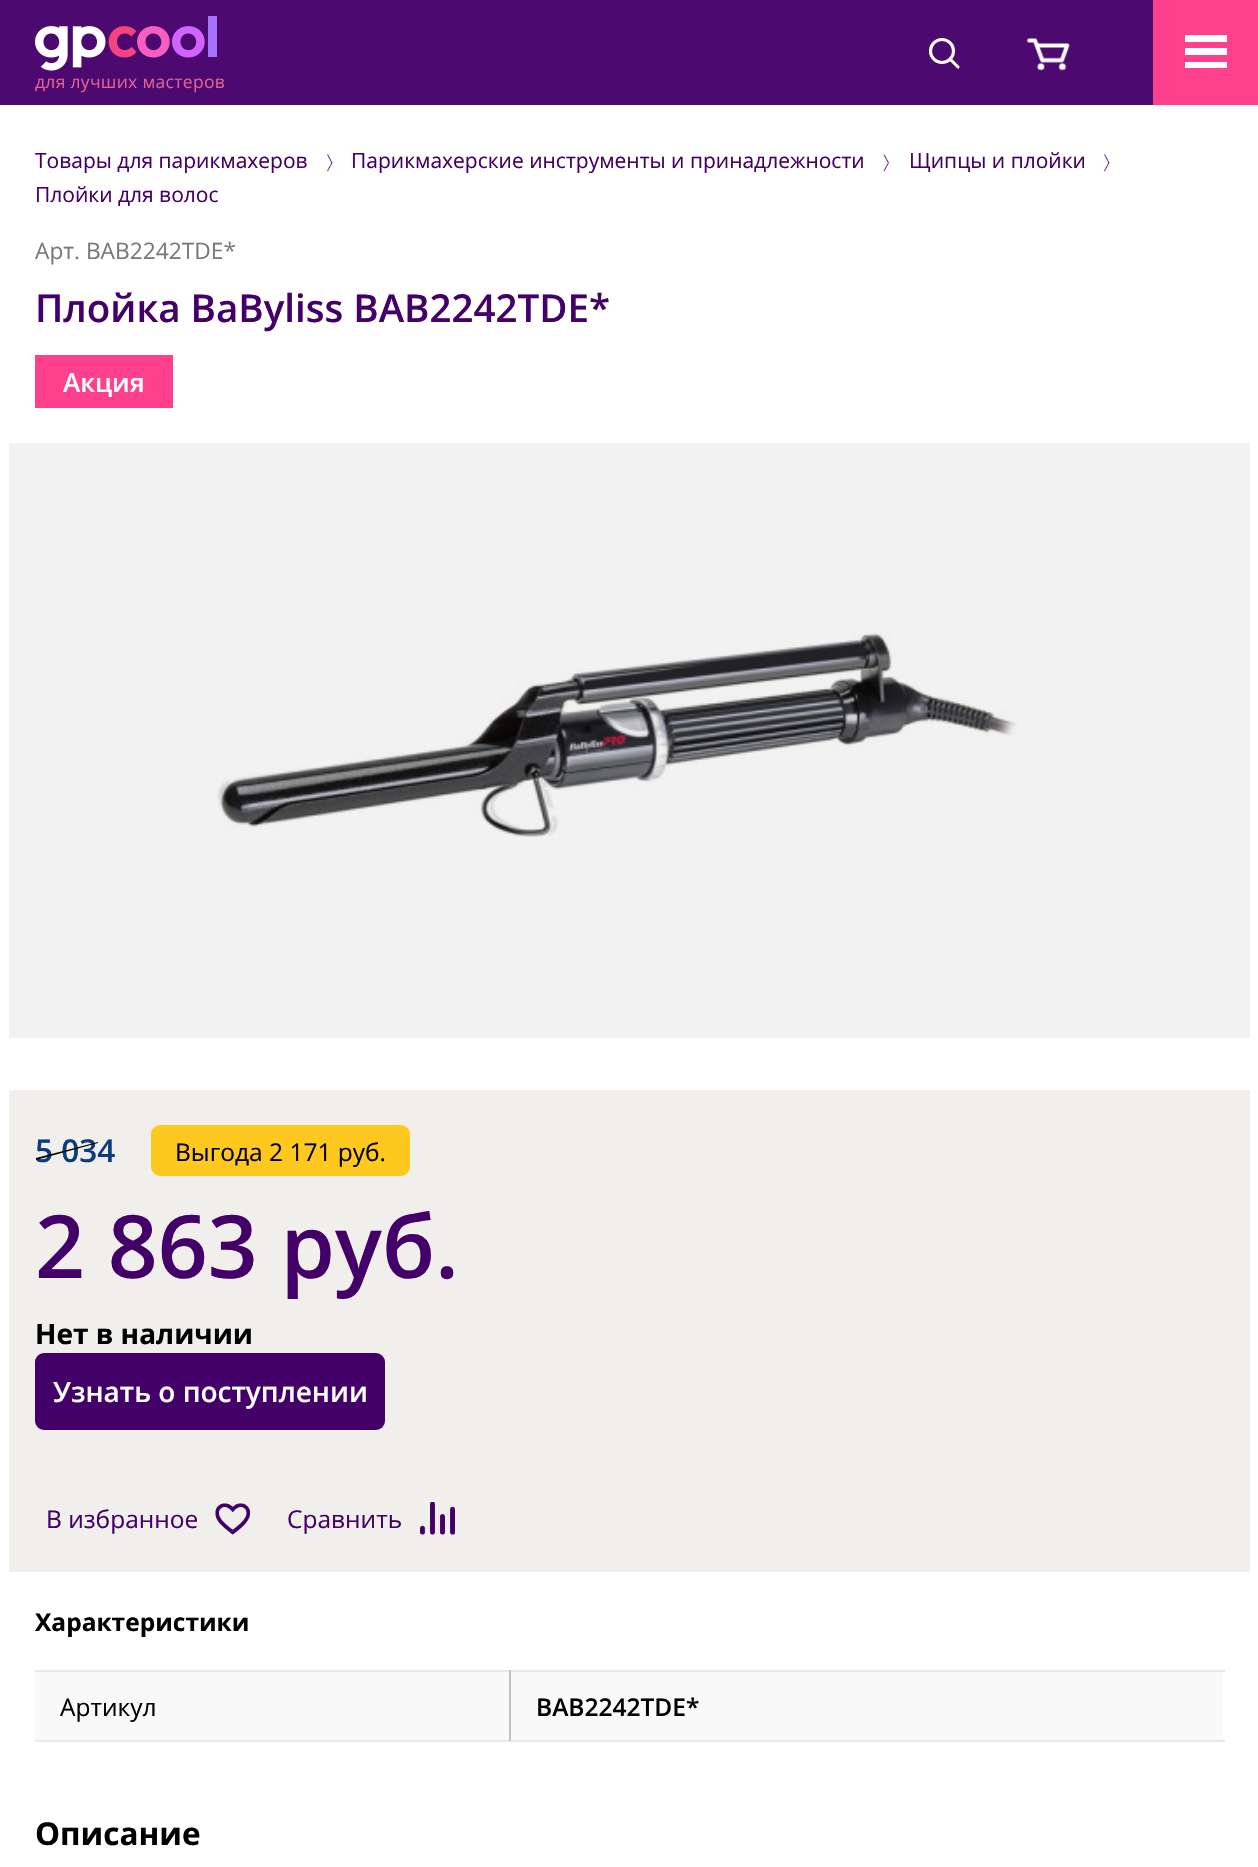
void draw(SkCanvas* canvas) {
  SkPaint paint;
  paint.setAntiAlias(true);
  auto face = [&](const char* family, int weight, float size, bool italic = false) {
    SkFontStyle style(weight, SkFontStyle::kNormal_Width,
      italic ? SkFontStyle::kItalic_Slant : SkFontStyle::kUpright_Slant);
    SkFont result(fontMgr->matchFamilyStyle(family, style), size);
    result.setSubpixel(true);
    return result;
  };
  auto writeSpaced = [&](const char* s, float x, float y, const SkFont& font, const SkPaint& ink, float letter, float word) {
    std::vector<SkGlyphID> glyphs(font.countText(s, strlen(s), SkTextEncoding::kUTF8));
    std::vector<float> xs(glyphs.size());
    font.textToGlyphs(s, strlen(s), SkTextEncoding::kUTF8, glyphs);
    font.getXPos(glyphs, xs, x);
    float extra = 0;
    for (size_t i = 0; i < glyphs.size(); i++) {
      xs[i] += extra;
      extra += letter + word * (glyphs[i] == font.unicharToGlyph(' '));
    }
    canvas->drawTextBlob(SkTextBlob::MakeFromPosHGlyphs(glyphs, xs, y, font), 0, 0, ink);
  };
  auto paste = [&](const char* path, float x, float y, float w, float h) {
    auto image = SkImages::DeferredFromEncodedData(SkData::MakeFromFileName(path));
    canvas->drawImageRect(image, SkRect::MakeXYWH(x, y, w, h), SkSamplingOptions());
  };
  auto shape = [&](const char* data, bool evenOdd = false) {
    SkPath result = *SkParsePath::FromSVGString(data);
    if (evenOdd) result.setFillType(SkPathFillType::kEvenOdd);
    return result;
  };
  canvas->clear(0xffffffff);
  paint.setColor(0xfff2f2f2);
  canvas->drawRect(SkRect::MakeXYWH(9, 443, 1241, 595), paint);
  paint.setColor(0xff4c0970);
  canvas->drawRect(SkRect::MakeXYWH(0, 0, 1153, 105), paint);
  paste("img/1.png", 35, 16, 182, 55);
  paint.setStroke(true);
  paint.setStrokeWidth(3.1f);
  paint.setColor(0xffffffff);
  canvas->drawCircle(942, 51, 11.5f, paint);
  paint.setStrokeCap(SkPaint::kRound_Cap);
  paint.setStrokeJoin(SkPaint::kRound_Join);
  canvas->drawPath(shape("M958 67L950 59"), paint);
  paste("img/2.png", 1027, 38, 43, 33);
  paint.setStroke(false);
  paint.setColor(0xffff408d);
  canvas->drawRect(SkRect::MakeXYWH(1153, 0, 105, 105), paint);
  paint.setColor(0xffffffff);
  canvas->drawPath(shape("M1185 35H1227V42H1185ZM1185 48H1227V55H1185ZM1185 62H1227V68H1185Z", true), paint);
  paste("img/3.png", 327, 154, 6, 18);
  paste("img/4.png", 883, 154, 6, 18);
  paste("img/3.png", 1104, 154, 6, 18);
  paint.setColor(0xffff408d);
  canvas->drawRect(SkRect::MakeXYWH(35, 355, 138, 53), paint);
  paste("img/5.png", 217, 630, 801, 207);
  paint.setColor(0xfff1efec);
  canvas->drawRect(SkRect::MakeXYWH(9, 1090, 1241, 482), paint);
  paint.setColor(0xffffc81e);
  canvas->drawRoundRect(SkRect::MakeXYWH(151, 1125, 259, 51), 9, 9, paint);
  paint.setColor(0xff440069);
  canvas->drawRoundRect(SkRect::MakeXYWH(35, 1353, 350, 77), 9, 9, paint);
  paste("img/6.png", 215, 1503, 35, 32);
  paste("img/7.png", 420, 1502, 35, 33);
  {
    const struct { float x, y, w, h; SkColor color; } items[] = {
      {35, 1672, 1188, 68, 0xfff9f9f9},
      {35, 1670, 1190, 2, 0xffe8e8e8},
      {35, 1740, 1190, 2, 0xffe8e8e8},
      {509, 1670, 2, 71, 0xffc7c4c0},
    };
    for (auto [x, y, w, h, color] : items) {
      paint.setColor(color);
      canvas->drawRect(SkRect::MakeXYWH(x, y, w, h), paint);
    }
  }
  auto f0 = face("Open Sans", 400, 17.5f);
  paint.setColor(0xffe16393);
  writeSpaced("для лучших мастеров", 35, 88, f0, paint, 0.3f, 0);
  auto f1 = face("Open Sans", 400, 21);
  paint.setColor(0xff440069);
  {
    const struct { const char* s; float x, y; } items[] = {
      {"Товары для парикмахеров", 35, 168},
      {"Парикмахерские инструменты и принадлежности", 351, 168},
      {"Щипцы и плойки", 909, 168},
      {"Плойки для волос", 35, 202},
    };
    for (auto [s, x, y] : items) {
      canvas->drawString(s, x, y, f1, paint);
    }
  }
  auto f2 = face("Open Sans", 400, 22.75f);
  paint.setColor(0xff797979);
  canvas->drawString("Арт. BAB2242TDE*", 35, 259, f2, paint);
  auto f3 = face("Open Sans", 600, 38.5f);
  paint.setColor(0xff440069);
  canvas->drawString("Плойка BaByliss BAB2242TDE*", 35, 322, f3, paint);
  auto f4 = face("Open Sans", 600, 26);
  paint.setColor(0xffffffff);
  canvas->drawString("Акция", 63, 392, f4, paint);
  auto f5 = face("Open Sans", 600, 31.5f);
  paint.setColor(0xff0c3c7f);
  canvas->drawString("5 034", 35, 1162, f5, paint);
  paint.setColor(0xff000000);
  canvas->drawPath(shape("M36 1158L98 1142V1143L36 1160Z"), paint);
  auto f6 = face("Open Sans", 400, 24.5f);
  canvas->drawString("Выгода 2 171 руб.", 175, 1161, f6, paint);
  auto f7 = face("Open Sans", 600, 87.5f);
  paint.setColor(0xff440069);
  canvas->drawString("2 863 руб.", 35, 1278, f7, paint);
  auto f8 = face("Open Sans", 700, 28);
  paint.setColor(0xff000000);
  canvas->drawString("Нет в наличии", 35, 1344, f8, paint);
  auto f9 = face("Open Sans", 600, 28);
  paint.setColor(0xffffffff);
  canvas->drawString("Узнать о поступлении", 53, 1402, f9, paint);
  paint.setColor(0xff440069);
  canvas->drawString("В избранное", 46, 1528, f6, paint);
  canvas->drawString("Сравнить", 287, 1528, f6, paint);
  auto f10 = face("Open Sans", 700, 24.5f);
  paint.setColor(0xff000000);
  canvas->drawString("Характеристики", 35, 1631, f10, paint);
  canvas->drawString("Артикул", 60, 1716, f6, paint);
  auto f11 = face("Open Sans", 600, 24.5f);
  canvas->drawString("BAB2242TDE*", 536, 1716, f11, paint);
  auto f12 = face("Open Sans", 700, 31.5f);
  canvas->drawString("Описание", 35, 1845, f12, paint);
}
